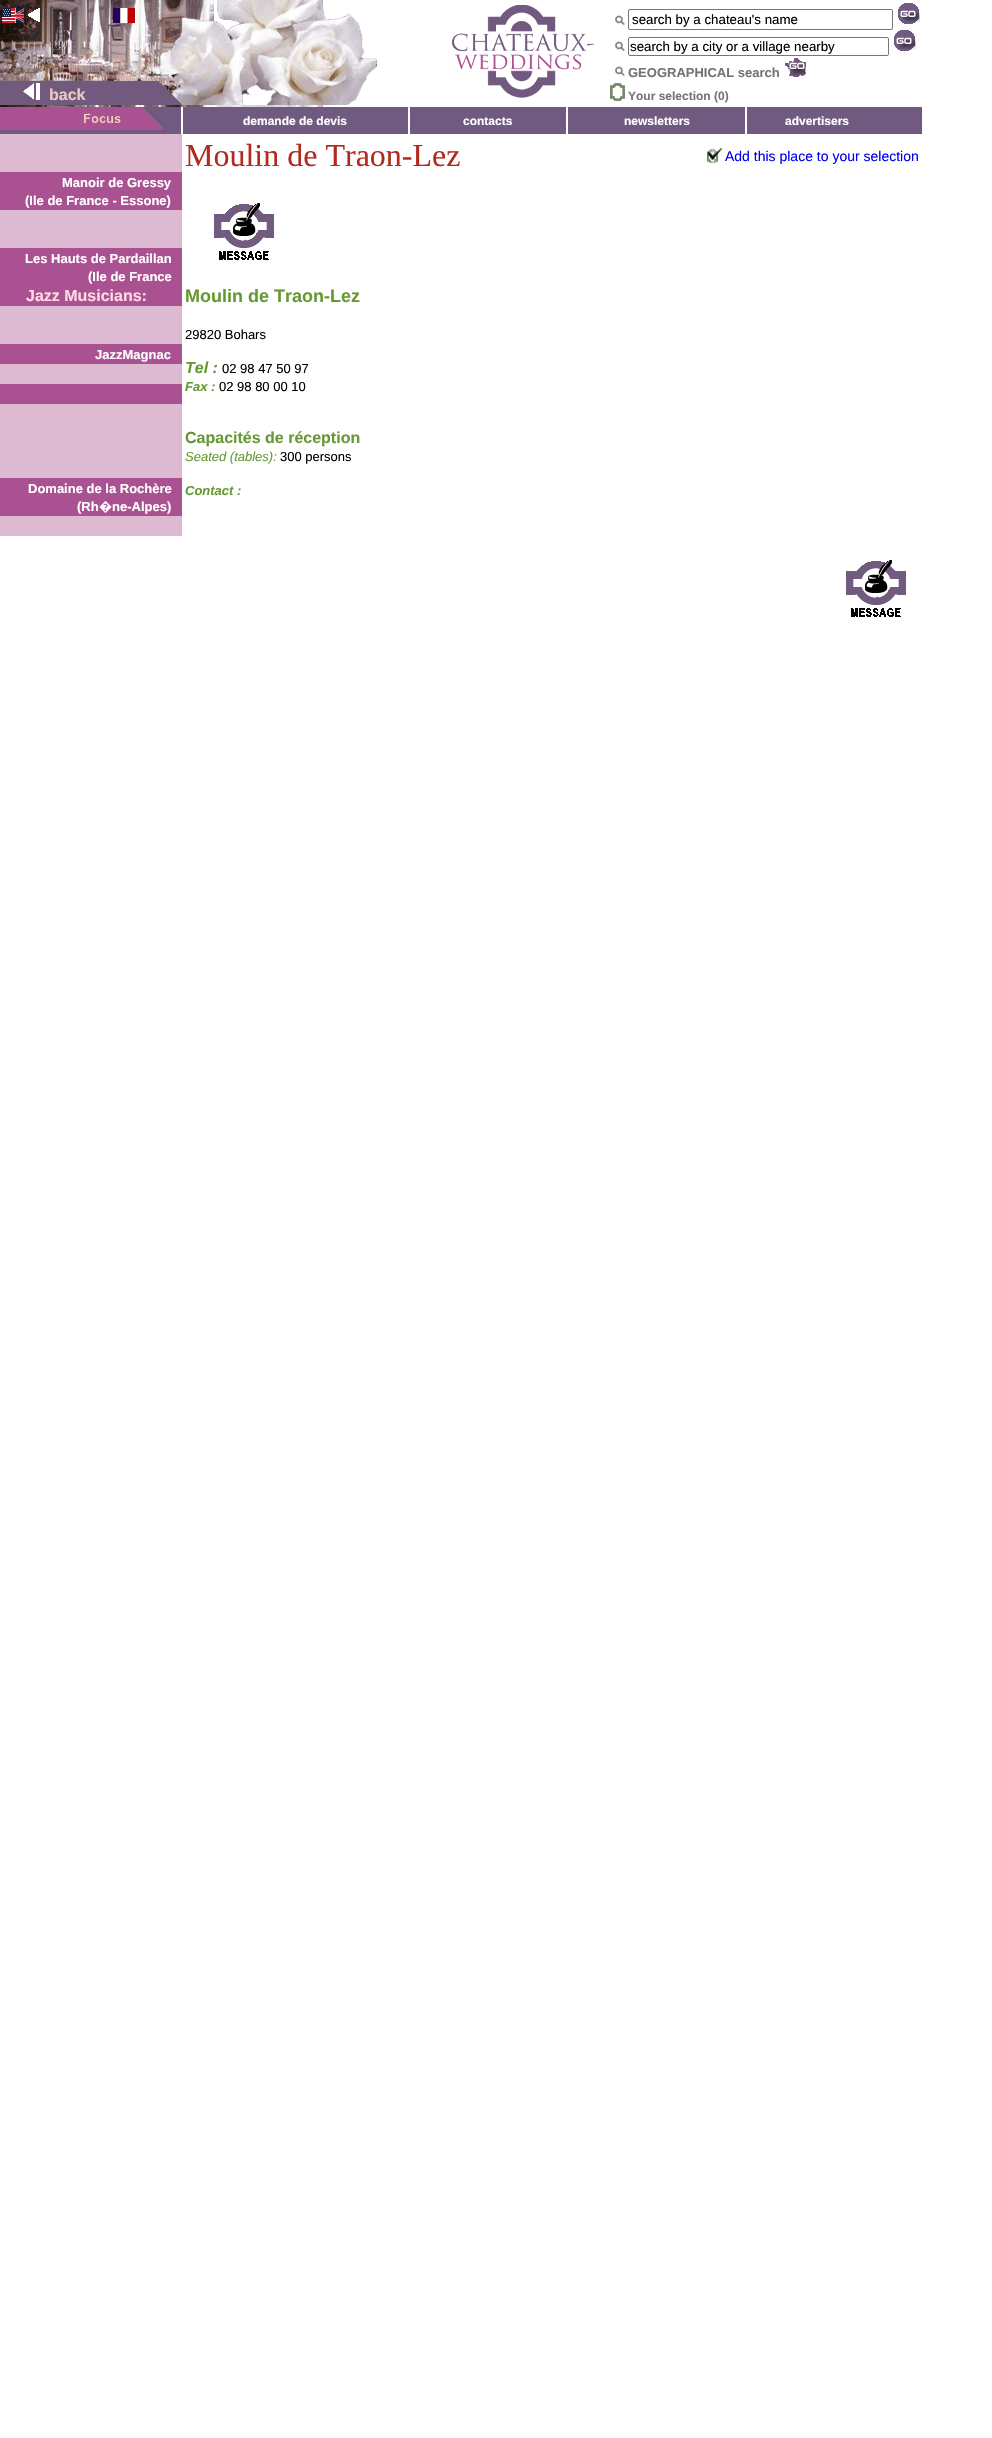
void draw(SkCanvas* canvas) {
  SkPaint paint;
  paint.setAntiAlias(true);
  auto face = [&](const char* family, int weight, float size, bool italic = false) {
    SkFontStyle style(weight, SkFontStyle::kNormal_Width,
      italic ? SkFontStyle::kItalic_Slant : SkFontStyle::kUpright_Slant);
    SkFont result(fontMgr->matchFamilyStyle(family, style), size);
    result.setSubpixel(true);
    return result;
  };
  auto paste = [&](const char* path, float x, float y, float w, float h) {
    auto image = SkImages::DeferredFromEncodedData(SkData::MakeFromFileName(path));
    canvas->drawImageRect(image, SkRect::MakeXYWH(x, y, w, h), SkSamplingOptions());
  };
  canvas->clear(0xffffffff);
  paste("img/1.png", 0, 0, 377, 107);
  paste("img/2.png", 2, 8, 22, 15);
  paste("img/3.png", 28, 8, 12, 14);
  paste("img/4.png", 113, 8, 22, 15);
  paste("img/5.png", 452, 5, 142, 93);
  paste("img/6.png", 615, 15, 10, 11);
  paint.setStroke(true);
  paint.setStrokeWidth(1);
  paint.setColor(0xff767676);
  canvas->drawRoundRect(SkRect::MakeXYWH(628.5f, 9.5f, 264, 20), 1.5f, 1.5f, paint);
  paste("img/7.png", 898, 3, 22, 21);
  paste("img/6.png", 615, 41, 10, 11);
  canvas->drawRoundRect(SkRect::MakeXYWH(628.5f, 37.5f, 260, 18), 1.5f, 1.5f, paint);
  paste("img/7.png", 894, 30, 22, 21);
  paste("img/6.png", 615, 66, 10, 11);
  paste("img/8.png", 785, 58, 21, 19);
  paste("img/9.png", 610, 83, 15, 18);
  paint.setStroke(false);
  paint.setColor(0xff715a7f);
  canvas->drawRect(SkRect::MakeXYWH(0, 107, 922, 27), paint);
  paste("img/10.png", 0, 107, 163, 23);
  {
    const struct { float x, y, w, h; SkColor color; } items[] = {
      {181, 107, 2, 27, 0xffffffff},
      {408, 107, 2, 27, 0xffffffff},
      {566, 107, 2, 27, 0xffffffff},
      {745, 107, 2, 27, 0xffffffff},
      {0, 134, 182, 402, 0xffddb9d2},
      {0, 172, 182, 38, 0xffaa5291},
      {0, 248, 182, 38, 0xffaa5291},
      {0, 286, 182, 20, 0xffaa5291},
      {0, 344, 182, 20, 0xffaa5291},
      {0, 384, 182, 20, 0xffaa5291},
      {0, 478, 182, 38, 0xffaa5291},
    };
    for (auto [x, y, w, h, color] : items) {
      paint.setColor(color);
      canvas->drawRect(SkRect::MakeXYWH(x, y, w, h), paint);
    }
  }
  paste("img/11.png", 707, 148, 15, 15);
  paste("img/12.png", 214, 203, 60, 57);
  paste("img/12.png", 846, 560, 60, 57);
  auto f0 = face("Liberation Sans", 700, 16);
  paint.setColor(0xffebc9c3);
  canvas->drawString("back", 49, 100, f0, paint);
  auto f1 = face("Liberation Sans", 400, 13.3f);
  paint.setColor(0xff000000);
  canvas->drawString("search by a chateau's name", 632, 24, f1, paint);
  canvas->drawString("search by a city or a village nearby", 630, 51, f1, paint);
  auto f2 = face("Liberation Sans", 700, 13);
  paint.setColor(0xff737477);
  canvas->drawString("GEOGRAPHICAL search", 628, 77, f2, paint);
  auto f3 = face("Liberation Sans", 700, 12);
  canvas->drawString("Your selection (0)", 628, 100, f3, paint);
  paint.setColor(0xffffffff);
  {
    const struct { const char* s; float x, y; } items[] = {
      {"demande de devis", 243, 125},
      {"contacts", 463, 125},
      {"newsletters", 624, 125},
      {"advertisers", 785, 125},
    };
    for (auto [s, x, y] : items) {
      canvas->drawString(s, x, y, f3, paint);
    }
  }
  {
    const struct { const char* s; float x, y; } items[] = {
      {"Manoir de Gressy", 62, 187},
      {"(Ile de France - Essone)", 25, 205},
      {"Les Hauts de Pardaillan", 25, 263},
      {"(Ile de France", 88, 281},
    };
    for (auto [s, x, y] : items) {
      canvas->drawString(s, x, y, f2, paint);
    }
  }
  paint.setColor(0xffffd9e2);
  canvas->drawString("Jazz Musicians:", 26, 301, f0, paint);
  paint.setColor(0xffffffff);
  {
    const struct { const char* s; float x, y; } items[] = {
      {"JazzMagnac", 95, 359},
      {"Domaine de la Rochère", 28, 493},
      {"(Rh", 77, 511},
    };
    for (auto [s, x, y] : items) {
      canvas->drawString(s, x, y, f2, paint);
    }
  }
  auto f4 = face("Noto Sans", 700, 13);
  canvas->drawString("�", 99, 511, f4, paint);
  canvas->drawString("ne-Alpes)", 112, 511, f2, paint);
  auto f5 = face("Liberation Serif", 400, 32);
  paint.setColor(0xffb3291e);
  canvas->drawString("Moulin de Traon-Lez", 185, 166, f5, paint);
  auto f6 = face("Liberation Sans", 400, 14);
  paint.setColor(0xff0000ee);
  canvas->drawString("Add this place to your selection", 725, 161, f6, paint);
  auto f7 = face("Liberation Sans", 700, 18);
  paint.setColor(0xff669933);
  canvas->drawString("Moulin de Traon-Lez", 185, 302, f7, paint);
  auto f8 = face("Liberation Sans", 400, 13);
  paint.setColor(0xff000000);
  canvas->drawString("29820 Bohars", 185, 339, f8, paint);
  auto f9 = face("Liberation Sans", 700, 16, true);
  paint.setColor(0xff669933);
  canvas->drawString("Tel :", 185, 373, f9, paint);
  paint.setColor(0xff000000);
  canvas->drawString("02 98 47 50 97", 222, 373, f8, paint);
  auto f10 = face("Liberation Sans", 700, 13, true);
  paint.setColor(0xff669933);
  canvas->drawString("Fax :", 185, 391, f10, paint);
  paint.setColor(0xff000000);
  canvas->drawString("02 98 80 00 10", 219, 391, f8, paint);
  paint.setColor(0xff669933);
  canvas->drawString("Capacités de réception", 185, 443, f0, paint);
  auto f11 = face("Liberation Sans", 400, 13, true);
  canvas->drawString("Seated (tables):", 185, 461, f11, paint);
  paint.setColor(0xff000000);
  canvas->drawString("300 persons", 280, 461, f8, paint);
  paint.setColor(0xff669933);
  canvas->drawString("Contact :", 185, 495, f10, paint);
}
